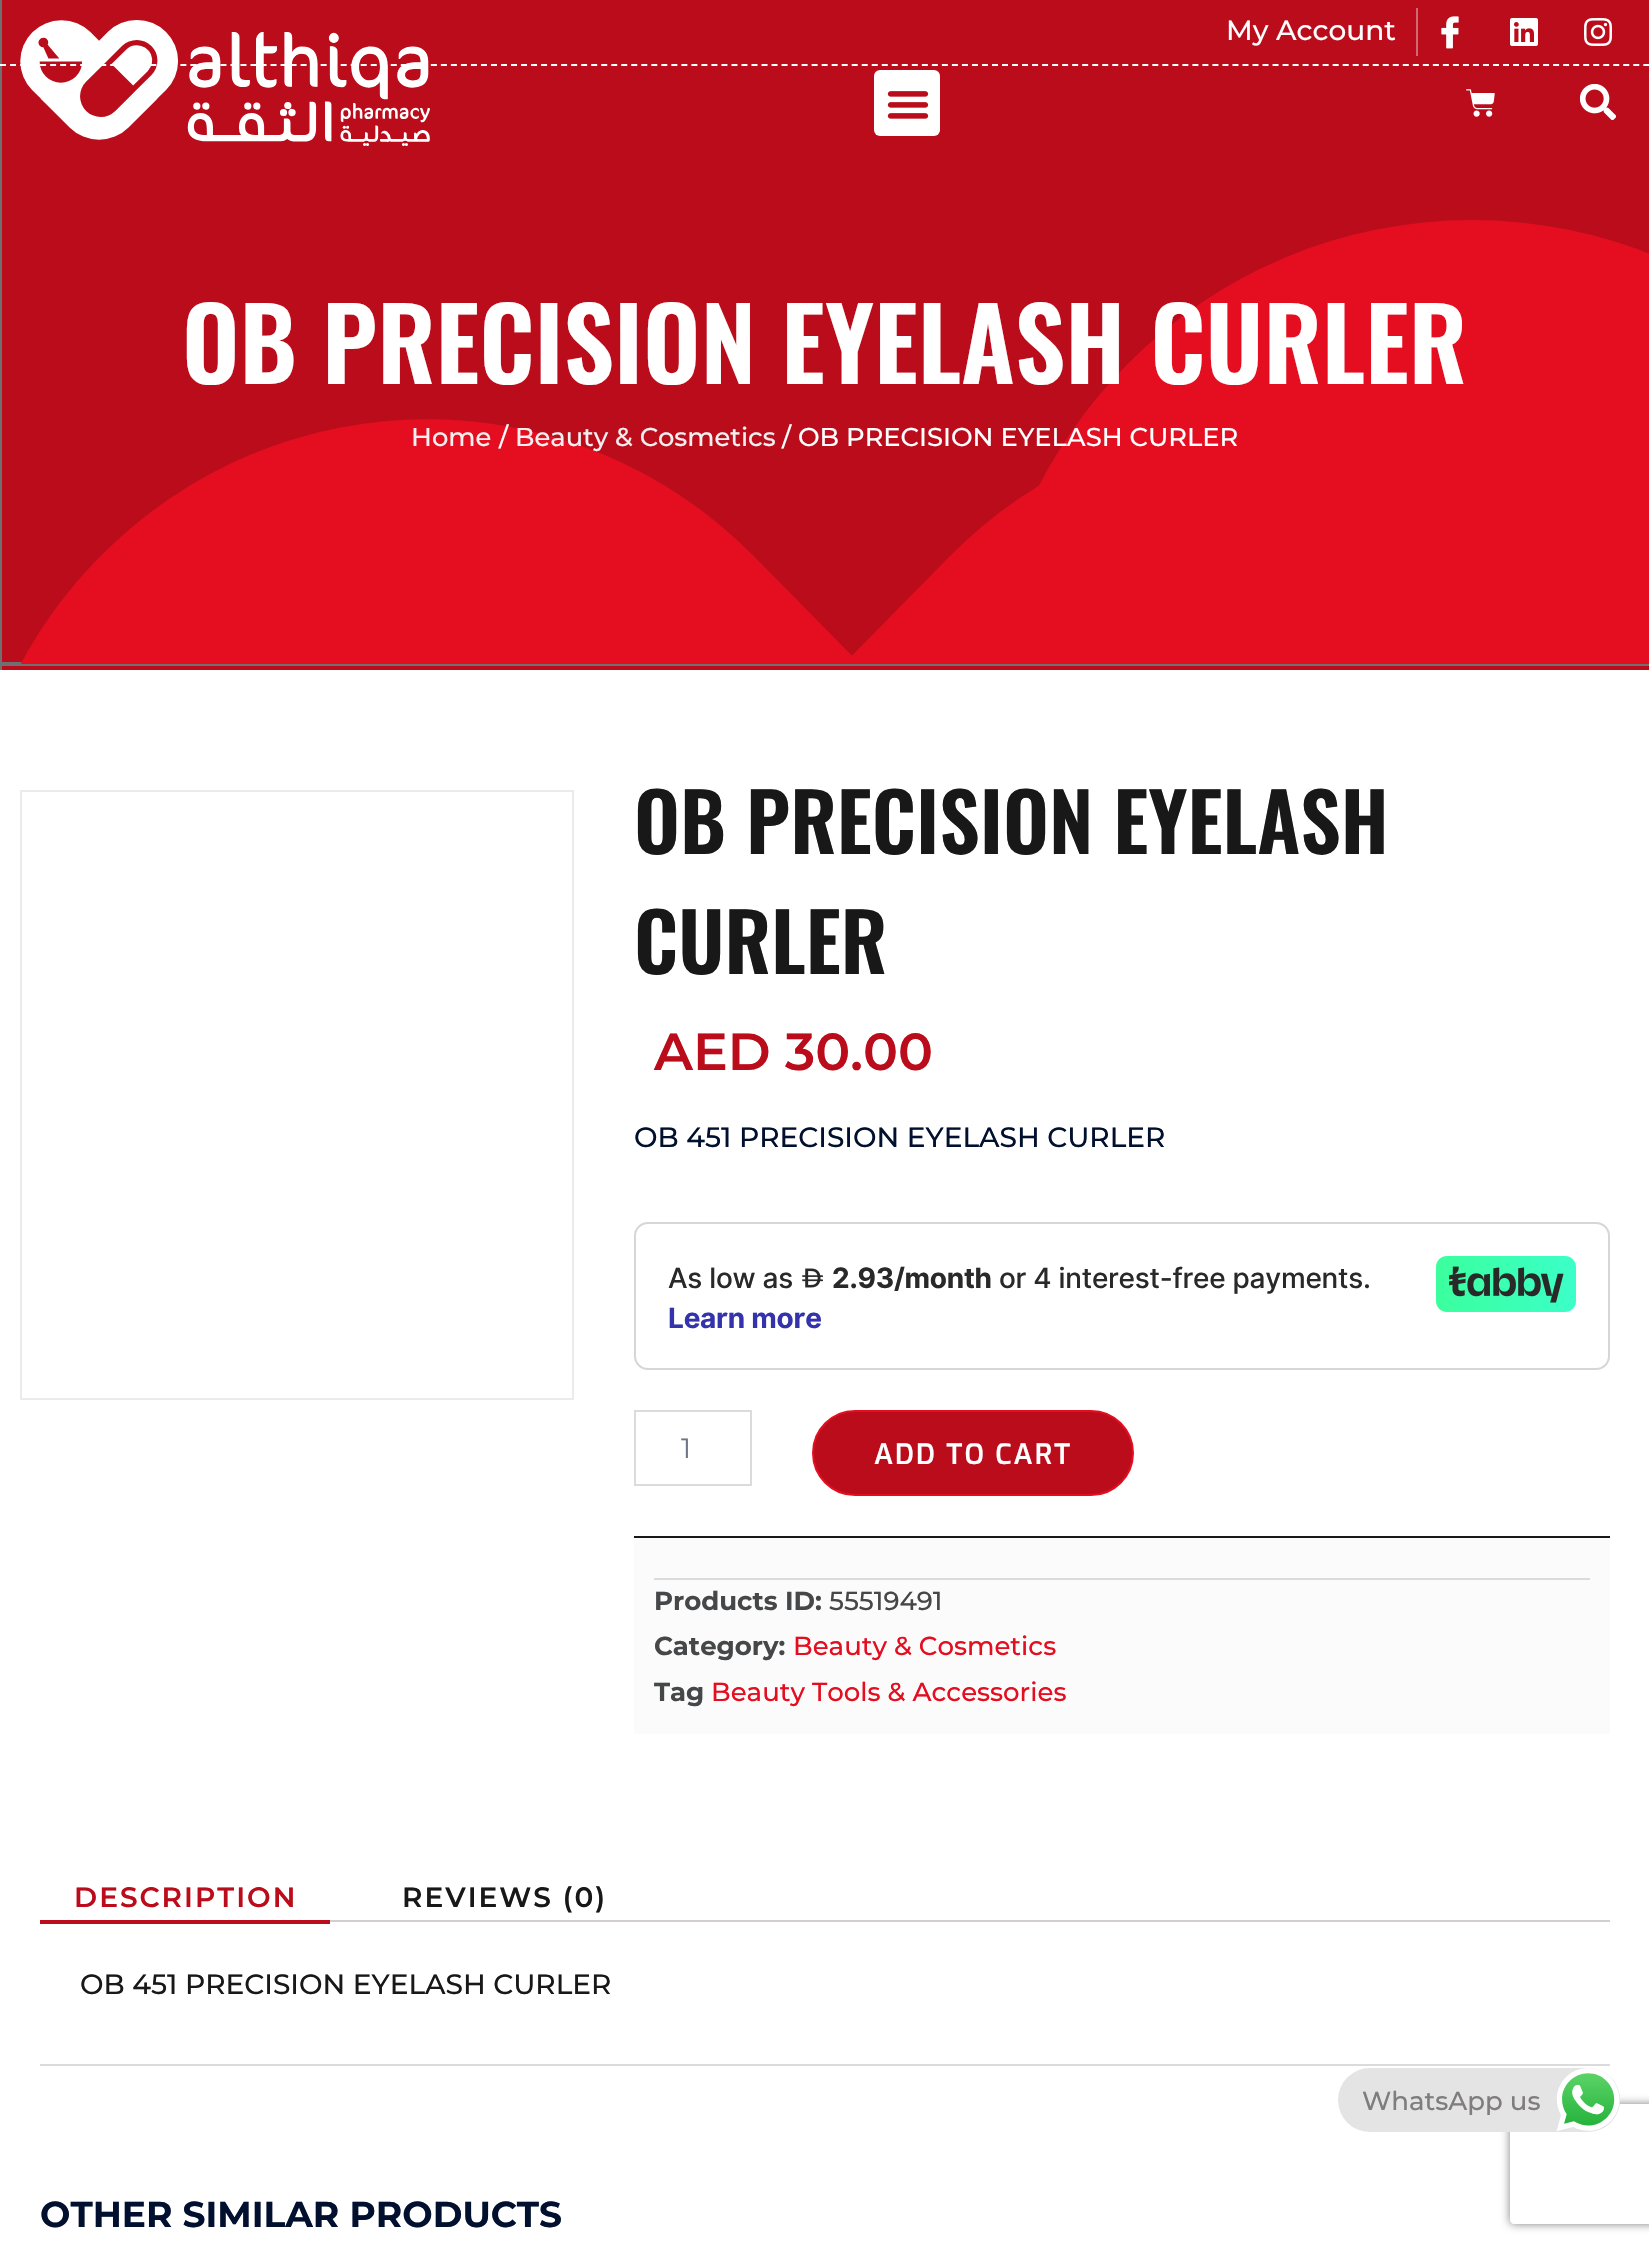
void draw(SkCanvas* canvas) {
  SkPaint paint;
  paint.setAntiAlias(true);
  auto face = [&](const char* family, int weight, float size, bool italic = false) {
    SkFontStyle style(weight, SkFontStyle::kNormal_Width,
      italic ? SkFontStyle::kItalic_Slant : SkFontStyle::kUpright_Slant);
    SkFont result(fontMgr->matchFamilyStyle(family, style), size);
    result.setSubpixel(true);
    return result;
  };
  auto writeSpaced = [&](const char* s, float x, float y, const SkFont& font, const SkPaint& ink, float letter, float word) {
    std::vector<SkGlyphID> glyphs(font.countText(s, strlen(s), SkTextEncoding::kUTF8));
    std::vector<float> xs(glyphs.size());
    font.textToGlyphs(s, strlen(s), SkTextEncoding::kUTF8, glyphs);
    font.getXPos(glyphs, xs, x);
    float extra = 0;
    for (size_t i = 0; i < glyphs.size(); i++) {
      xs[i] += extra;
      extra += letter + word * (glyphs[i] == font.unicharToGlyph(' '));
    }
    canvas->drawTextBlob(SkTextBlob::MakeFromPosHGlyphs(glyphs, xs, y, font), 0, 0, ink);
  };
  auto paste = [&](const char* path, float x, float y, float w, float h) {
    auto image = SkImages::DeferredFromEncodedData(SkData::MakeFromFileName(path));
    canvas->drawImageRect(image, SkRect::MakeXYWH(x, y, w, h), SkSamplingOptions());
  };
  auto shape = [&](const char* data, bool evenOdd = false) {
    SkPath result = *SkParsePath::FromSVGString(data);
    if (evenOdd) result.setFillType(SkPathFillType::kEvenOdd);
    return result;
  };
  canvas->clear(0xffffffff);
  paste("img/8.png", 0, 0, 1649, 670);
  paint.setStroke(true);
  paint.setStrokeWidth(2);
  paint.setColor(0xffffffff);
  paint.setPathEffect(SkDashPathEffect::Make({{6, 4.02f}}, 0));
  canvas->drawPath(shape("M0 65H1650"), paint);
  paint.setPathEffect(nullptr);
  paste("img/1.png", 20, 20, 410, 126);
  paint.setStroke(false);
  canvas->drawRoundRect(SkRect::MakeXYWH(874, 70, 66, 66), 6, 6, paint);
  paste("img/2.png", 887, 91, 42, 28);
  paste("img/3.png", 1466, 89, 29, 28);
  paste("img/4.png", 1580, 84, 36, 36);
  paint.setColor(0xffd46871);
  canvas->drawRect(SkRect::MakeXYWH(1416, 8, 2, 48), paint);
  paste("img/5.png", 1441, 16, 18, 33);
  paste("img/6.png", 1510, 18, 28, 28);
  paste("img/7.png", 1584, 18, 28, 28);
  paint.setStroke(true);
  paint.setColor(0xffebebeb);
  canvas->drawRect(SkRect::MakeXYWH(21, 791, 552, 608), paint);
  paint.setColor(0xffd6d6d3);
  canvas->drawRoundRect(SkRect::MakeXYWH(635, 1223, 974, 146), 13, 13, paint);
  paste("img/9.png", 802, 1268, 22, 20);
  paste("img/10.png", 1436, 1256, 140, 56);
  paint.setColor(0xffdbdbdb);
  canvas->drawRect(SkRect::MakeXYWH(635, 1411, 116, 74), paint);
  paint.setStroke(false);
  paint.setColor(0xffba0c1a);
  canvas->drawRoundRect(SkRect::MakeXYWH(813, 1411, 320, 84), 42, 42, paint);
  paint.setStroke(true);
  paint.setColor(0xffe40e20);
  canvas->drawRoundRect(SkRect::MakeXYWH(813, 1411, 320, 84), 42, 42, paint);
  paint.setStroke(false);
  {
    const struct { float x, y, w, h; SkColor color; } items[] = {
      {634, 1538, 976, 196, 0xfffbfbfb},
      {634, 1536, 976, 2, 0xff181818},
      {654, 1578, 936, 2, 0xffdbdbdb},
      {40, 2064, 1570, 2, 0xffdbdbdb},
      {40, 1920, 290, 4, 0xffba0c1a},
      {330, 1920, 1280, 2, 0xffd3ced2},
    };
    for (auto [x, y, w, h, color] : items) {
      paint.setColor(color);
      canvas->drawRect(SkRect::MakeXYWH(x, y, w, h), paint);
    }
  }
  canvas->save();
  canvas->clipPath(shape("M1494 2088H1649V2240H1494ZM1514 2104H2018C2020 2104 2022 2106 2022 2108V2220C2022 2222 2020 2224 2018 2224H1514C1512 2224 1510 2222 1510 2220V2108C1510 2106 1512 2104 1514 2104Z", true), true);
  paint.setColor(0xff808080);
  paint.setMaskFilter(SkMaskFilter::MakeBlur(kNormal_SkBlurStyle, 5));
  canvas->drawRoundRect(SkRect::MakeXYWH(1510, 2104, 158, 120), 4, 4, paint);
  paint.setMaskFilter(nullptr);
  canvas->restore();
  paint.setColor(0xffe4e4e4);
  canvas->drawRoundRect(SkRect::MakeXYWH(1338, 2068, 282, 64), 32, 32, paint);
  paste("img/11.png", 1556, 2068, 64, 63);
  auto f0 = face("Montserrat", 500, 28);
  paint.setColor(0xffffffff);
  canvas->drawString("My Account", 1226, 40, f0, paint);
  auto f1 = face("Oswald", 600, 100);
  canvas->drawString("OB PRECISION EYELASH CURLER", 182, 384, f1, paint);
  auto f2 = face("Montserrat", 500, 25.75f);
  paint.setColor(0xfff0f0f0);
  canvas->drawString("Home", 411, 446, f2, paint);
  paint.setColor(0xffffffff);
  canvas->drawString("/", 499, 446, f2, paint);
  paint.setColor(0xfff0f0f0);
  canvas->drawString("Beauty & Cosmetics", 515, 446, f2, paint);
  paint.setColor(0xffffffff);
  canvas->drawString("/ OB PRECISION EYELASH CURLER", 782, 446, f2, paint);
  auto f3 = face("Oswald", 600, 80);
  paint.setColor(0xff181818);
  canvas->drawString("OB PRECISION EYELASH", 634, 854, f3, paint);
  canvas->drawString("CURLER", 634, 974, f3, paint);
  auto f4 = face("Montserrat", 600, 52);
  paint.setColor(0xffba0c1a);
  canvas->drawString("AED 30.00", 654, 1070, f4, paint);
  paint.setColor(0xff00102e);
  canvas->drawString("OB 451 PRECISION EYELASH CURLER", 634, 1147, f0, paint);
  auto f5 = face("Inter", 500, 28);
  paint.setColor(0xff292929);
  writeSpaced("As low as", 668, 1288, f5, paint, -0.25f, 0);
  auto f6 = face("Inter", 700, 28);
  writeSpaced("2.93/month", 832, 1288, f6, paint, -0.25f, 0);
  writeSpaced("or 4 interest-free payments.", 999, 1288, f5, paint, -0.25f, 0);
  paint.setColor(0xff3533ac);
  writeSpaced("Learn more", 668, 1328, f6, paint, -0.25f, 0);
  auto f7 = face("Montserrat", 400, 28);
  paint.setColor(0xff6d7685);
  canvas->drawString("1", 681, 1458, f7, paint);
  auto f8 = face("Exo", 600, 28);
  paint.setColor(0xffffffff);
  writeSpaced("ADD TO CART", 874, 1464, f8, paint, 2, 0);
  auto f9 = face("Montserrat", 700, 26);
  paint.setColor(0xff464749);
  canvas->drawString("Products ID:", 654, 1610, f9, paint);
  auto f10 = face("Montserrat", 500, 26);
  canvas->drawString("55519491", 829, 1610, f10, paint);
  canvas->drawString("Category:", 654, 1655, f9, paint);
  paint.setColor(0xffe40e20);
  canvas->drawString("Beauty & Cosmetics", 793, 1655, f10, paint);
  paint.setColor(0xff464749);
  canvas->drawString("Tag", 654, 1701, f9, paint);
  paint.setColor(0xffe40e20);
  canvas->drawString("Beauty Tools & Accessories", 711, 1701, f10, paint);
  auto f11 = face("Montserrat", 600, 28);
  paint.setColor(0xffba0c1a);
  writeSpaced("DESCRIPTION", 74, 1907, f11, paint, 2, 0);
  paint.setColor(0xff181818);
  writeSpaced("REVIEWS (0)", 402, 1907, f11, paint, 2, 0);
  canvas->drawString("OB 451 PRECISION EYELASH CURLER", 80, 1994, f0, paint);
  auto f12 = face("Montserrat", 700, 36);
  paint.setColor(0xff00102e);
  canvas->drawString("OTHER SIMILAR PRODUCTS", 40, 2227, f12, paint);
  paint.setColor(0xff7f7d7d);
  canvas->drawString("WhatsApp us", 1362, 2110, f10, paint);
}
